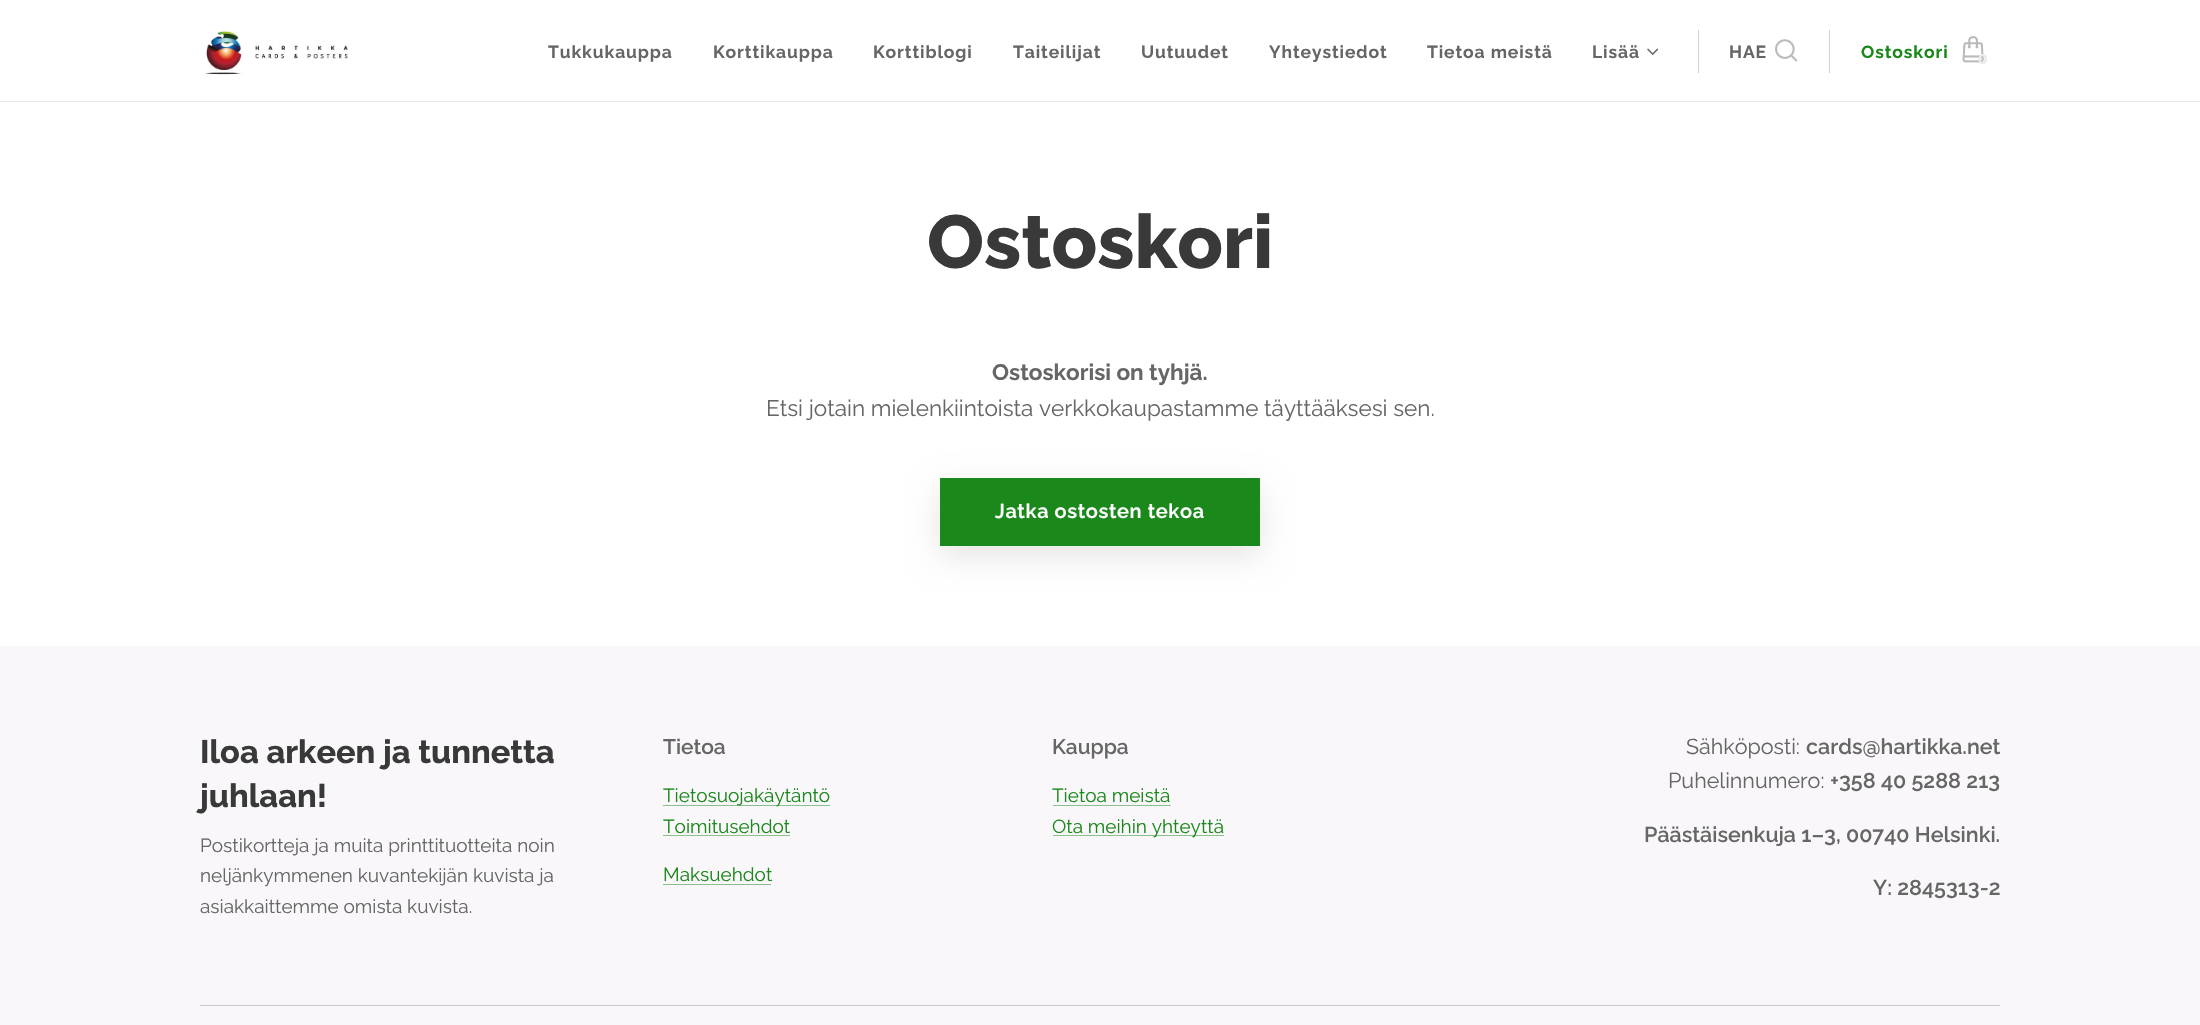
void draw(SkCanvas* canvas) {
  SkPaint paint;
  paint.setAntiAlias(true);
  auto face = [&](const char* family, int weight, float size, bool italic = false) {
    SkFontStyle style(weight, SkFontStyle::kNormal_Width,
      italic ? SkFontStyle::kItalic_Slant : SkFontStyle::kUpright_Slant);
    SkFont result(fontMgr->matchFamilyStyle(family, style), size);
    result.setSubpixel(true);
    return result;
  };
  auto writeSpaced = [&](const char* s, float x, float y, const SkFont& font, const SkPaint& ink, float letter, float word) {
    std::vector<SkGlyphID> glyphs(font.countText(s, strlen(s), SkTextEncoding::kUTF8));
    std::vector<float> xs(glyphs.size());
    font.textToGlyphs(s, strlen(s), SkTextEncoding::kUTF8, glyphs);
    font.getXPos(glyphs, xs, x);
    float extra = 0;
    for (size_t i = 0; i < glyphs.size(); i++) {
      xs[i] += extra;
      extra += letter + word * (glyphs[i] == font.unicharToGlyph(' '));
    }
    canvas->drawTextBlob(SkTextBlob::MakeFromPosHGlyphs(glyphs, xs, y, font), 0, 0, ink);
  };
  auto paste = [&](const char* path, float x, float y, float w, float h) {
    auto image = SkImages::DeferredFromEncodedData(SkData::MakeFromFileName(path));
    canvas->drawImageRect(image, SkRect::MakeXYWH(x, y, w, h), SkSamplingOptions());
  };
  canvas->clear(0xffffffff);
  paste("img/1.png", 205, 30, 144, 45);
  paste("img/2.png", 1647, 48, 12, 7);
  paint.setColor(0xffd1d1d1);
  canvas->drawRect(SkRect::MakeXYWH(1698, 30, 1, 43), paint);
  paste("img/3.png", 1775, 39, 23, 23);
  canvas->drawRect(SkRect::MakeXYWH(1829, 30, 1, 43), paint);
  paste("img/4.png", 1962, 36, 22, 27);
  paint.setColor(0xffe8e8e8);
  canvas->drawRect(SkRect::MakeXYWH(0, 101, 2200, 1), paint);
  paint.setColor(0x1a000000);
  paint.setMaskFilter(SkMaskFilter::MakeBlur(kNormal_SkBlurStyle, 15.5f));
  canvas->drawRect(SkRect::MakeXYWH(940, 488, 320, 68), paint);
  paint.setMaskFilter(nullptr);
  {
    const struct { float x, y, w, h; SkColor color; } items[] = {
      {940, 478, 320, 68, 0xff1a881a},
      {0, 646, 2200, 379, 0xfff9f7fa},
      {663, 805, 167, 1, 0xff8ac08a},
      {663, 835, 127, 1, 0xff8ac08a},
      {663, 884, 108, 1, 0xff8ac08a},
      {1053, 805, 118, 1, 0xff8ac08a},
      {1053, 835, 171, 1, 0xff8ac08a},
      {200, 1005, 1800, 1, 0xffc9c9c9},
    };
    for (auto [x, y, w, h, color] : items) {
      paint.setColor(color);
      canvas->drawRect(SkRect::MakeXYWH(x, y, w, h), paint);
    }
  }
  auto f0 = face("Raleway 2", 700, 17.5f);
  paint.setColor(0xff666666);
  {
    const struct { const char* s; float x, y; } items[] = {
      {"Tukkukauppa", 548, 58},
      {"Korttikauppa", 713, 58},
      {"Korttiblogi", 873, 58},
      {"Taiteilijat", 1013, 58},
      {"Uutuudet", 1141, 58},
      {"Yhteystiedot", 1269, 58},
      {"Tietoa meistä", 1427, 58},
      {"Lisää", 1592, 58},
      {"HAE", 1729, 58},
    };
    for (auto [s, x, y] : items) {
      writeSpaced(s, x, y, f0, paint, 0.9f, 0);
    }
  }
  paint.setColor(0xff1a881a);
  writeSpaced("Ostoskori", 1861, 58, f0, paint, 0.9f, 0);
  auto f1 = face("Montserrat", 700, 14);
  paint.setColor(0xffebebeb);
  canvas->drawString("0", 1978, 64, f1, paint);
  auto f2 = face("Raleway", 800, 75);
  paint.setColor(0xff393939);
  canvas->drawString("Ostoskori", 927, 268, f2, paint);
  auto f3 = face("Raleway 2", 700, 22.5f);
  paint.setColor(0xff666666);
  canvas->drawString("Ostoskorisi on tyhjä.", 992, 380, f3, paint);
  auto f4 = face("Raleway", 400, 22.5f);
  canvas->drawString("Etsi jotain mielenkiintoista verkkokaupastamme täyttääksesi sen.", 766, 416, f4, paint);
  auto f5 = face("Raleway 2", 600, 20);
  paint.setColor(0xffffffff);
  writeSpaced("Jatka ostosten tekoa", 995, 518, f5, paint, 0.6f, 0);
  auto f6 = face("Raleway", 700, 32.5f);
  paint.setColor(0xff393939);
  canvas->drawString("Iloa arkeen ja tunnetta", 200, 763, f6, paint);
  canvas->drawString("juhlaan!", 200, 807, f6, paint);
  auto f7 = face("Raleway", 400, 19);
  paint.setColor(0xff666666);
  {
    const struct { const char* s; float x, y; } items[] = {
      {"Postikortteja ja muita printtituotteita noin", 200, 852},
      {"neljänkymmenen kuvantekijän kuvista ja", 200, 882},
      {"asiakkaittemme omista kuvista.", 200, 913},
    };
    for (auto [s, x, y] : items) {
      canvas->drawString(s, x, y, f7, paint);
    }
  }
  auto f8 = face("Raleway", 600, 21);
  canvas->drawString("Tietoa", 663, 754, f8, paint);
  paint.setColor(0xff1a881a);
  {
    const struct { const char* s; float x, y; } items[] = {
      {"Tietosuojakäytäntö", 663, 802},
      {"Toimitusehdot", 663, 833},
      {"Maksuehdot", 663, 881},
    };
    for (auto [s, x, y] : items) {
      canvas->drawString(s, x, y, f7, paint);
    }
  }
  paint.setColor(0xff666666);
  canvas->drawString("Kauppa", 1052, 754, f8, paint);
  paint.setColor(0xff1a881a);
  canvas->drawString("Tietoa meistä", 1052, 802, f7, paint);
  canvas->drawString("Ota meihin yhteyttä", 1052, 833, f7, paint);
  auto f9 = face("Raleway", 400, 21.5f);
  paint.setColor(0xff666666);
  canvas->drawString("Sähköposti:", 1686, 754, f9, paint);
  auto f10 = face("Raleway", 600, 21.5f);
  canvas->drawString("cards@hartikka.net", 1806, 754, f10, paint);
  canvas->drawString("Puhelinnumero:", 1668, 788, f9, paint);
  {
    const struct { const char* s; float x, y; } items[] = {
      {"+358 40 5288 213", 1830, 788},
      {"Päästäisenkuja 1–3, 00740 Helsinki.", 1644, 842},
      {"Y: 2845313-2", 1873, 895},
    };
    for (auto [s, x, y] : items) {
      canvas->drawString(s, x, y, f10, paint);
    }
  }
}
